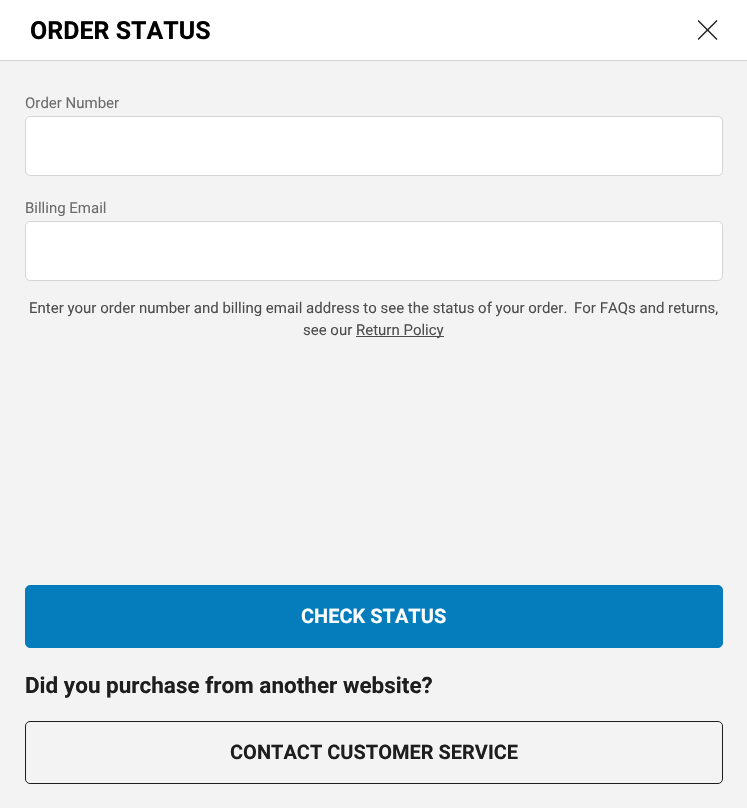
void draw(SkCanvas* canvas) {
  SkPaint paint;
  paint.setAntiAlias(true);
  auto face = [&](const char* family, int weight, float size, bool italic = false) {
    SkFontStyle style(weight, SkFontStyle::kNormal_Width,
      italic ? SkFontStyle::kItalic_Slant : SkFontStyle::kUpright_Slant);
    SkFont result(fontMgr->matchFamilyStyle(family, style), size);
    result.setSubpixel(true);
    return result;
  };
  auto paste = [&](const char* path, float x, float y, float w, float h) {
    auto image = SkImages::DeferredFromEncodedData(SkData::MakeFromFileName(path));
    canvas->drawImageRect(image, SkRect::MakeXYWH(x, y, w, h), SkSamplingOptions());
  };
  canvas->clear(0xfff3f3f3);
  paint.setColor(0xffffffff);
  canvas->drawRect(SkRect::MakeXYWH(0, 0, 747, 60), paint);
  paint.setColor(0xffd5d5d5);
  canvas->drawRect(SkRect::MakeXYWH(0, 60, 747, 1), paint);
  paste("img/1.png", 698, 20, 20, 20);
  paint.setColor(0xffffffff);
  canvas->drawRoundRect(SkRect::MakeXYWH(25.5f, 116.5f, 697, 59), 4.5f, 4.5f, paint);
  paint.setStroke(true);
  paint.setStrokeWidth(1);
  paint.setColor(0xffd5d5d5);
  canvas->drawRoundRect(SkRect::MakeXYWH(25.5f, 116.5f, 697, 59), 4.5f, 4.5f, paint);
  paint.setStroke(false);
  paint.setColor(0xffffffff);
  canvas->drawRoundRect(SkRect::MakeXYWH(25.5f, 221.5f, 697, 59), 4.5f, 4.5f, paint);
  paint.setStroke(true);
  paint.setColor(0xffd5d5d5);
  canvas->drawRoundRect(SkRect::MakeXYWH(25.5f, 221.5f, 697, 59), 4.5f, 4.5f, paint);
  paint.setStroke(false);
  paint.setColor(0xff4d4d4d);
  canvas->drawRect(SkRect::MakeXYWH(356, 336, 88, 1), paint);
  paint.setColor(0xff057dbc);
  canvas->drawRoundRect(SkRect::MakeXYWH(25.5f, 585.5f, 697, 62), 4.5f, 4.5f, paint);
  paint.setStroke(true);
  canvas->drawRoundRect(SkRect::MakeXYWH(25.5f, 585.5f, 697, 62), 4.5f, 4.5f, paint);
  paint.setColor(0xff1e1e1e);
  canvas->drawRoundRect(SkRect::MakeXYWH(25.5f, 721.5f, 697, 62), 4.5f, 4.5f, paint);
  auto f0 = face("Roboto", 700, 25);
  paint.setStroke(false);
  paint.setColor(0xff000000);
  canvas->drawString("ORDER STATUS", 30, 39, f0, paint);
  auto f1 = face("Roboto", 400, 15);
  paint.setColor(0xff6c6c6c);
  canvas->drawString("Order Number", 25, 108, f1, paint);
  canvas->drawString("Billing Email", 25, 213, f1, paint);
  paint.setColor(0xff4d4d4d);
  {
    const struct { const char* s; float x, y; } items[] = {
      {"Enter your order number and billing email address to see the status of your order.", 29, 313},
      {"For FAQs and returns,", 574, 313},
      {"see our", 303, 335},
      {"Return Policy", 356, 335},
    };
    for (auto [s, x, y] : items) {
      canvas->drawString(s, x, y, f1, paint);
    }
  }
  auto f2 = face("Roboto", 700, 20);
  paint.setColor(0xffffffff);
  canvas->drawString("CHECK STATUS", 301, 623, f2, paint);
  auto f3 = face("Roboto", 700, 22.5f);
  paint.setColor(0xff1e1e1e);
  canvas->drawString("Did you purchase from another website?", 25, 693, f3, paint);
  canvas->drawString("CONTACT CUSTOMER SERVICE", 230, 759, f2, paint);
}
